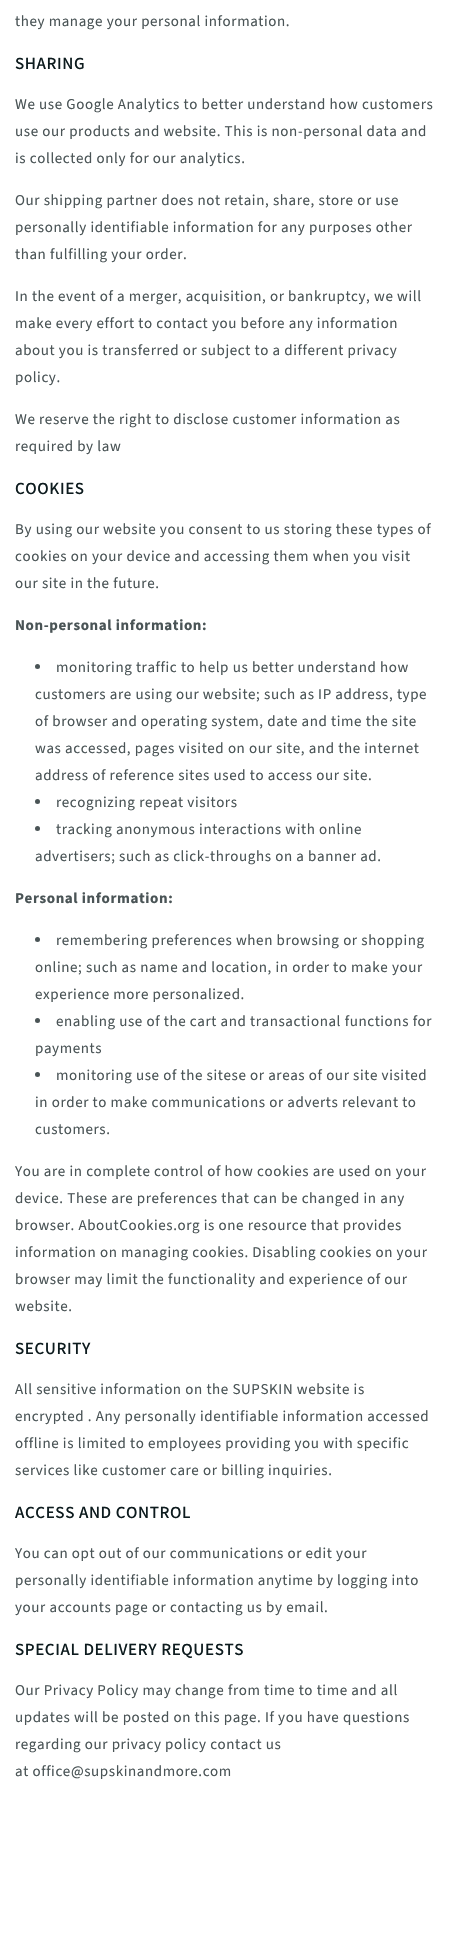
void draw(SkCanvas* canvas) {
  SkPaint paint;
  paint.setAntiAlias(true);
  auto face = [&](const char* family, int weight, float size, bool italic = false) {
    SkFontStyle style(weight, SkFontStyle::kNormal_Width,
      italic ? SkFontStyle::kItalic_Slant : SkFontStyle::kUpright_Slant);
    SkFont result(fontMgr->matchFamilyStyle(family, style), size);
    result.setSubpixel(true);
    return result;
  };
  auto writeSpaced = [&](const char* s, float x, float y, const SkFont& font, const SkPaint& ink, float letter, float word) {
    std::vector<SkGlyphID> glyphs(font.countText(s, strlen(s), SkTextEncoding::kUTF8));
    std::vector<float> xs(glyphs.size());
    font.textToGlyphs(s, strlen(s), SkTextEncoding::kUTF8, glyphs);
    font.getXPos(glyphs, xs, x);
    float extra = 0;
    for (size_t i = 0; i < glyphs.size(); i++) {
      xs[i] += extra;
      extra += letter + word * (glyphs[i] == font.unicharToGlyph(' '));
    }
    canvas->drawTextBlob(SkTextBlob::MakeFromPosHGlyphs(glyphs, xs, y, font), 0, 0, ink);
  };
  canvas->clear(0xffffffff);
  paint.setColor(0xff4a5456);
  canvas->drawCircle(37.5f, 666.5f, 2.5f, paint);
  canvas->drawCircle(37.5f, 801.5f, 2.5f, paint);
  canvas->drawCircle(37.5f, 828.5f, 2.5f, paint);
  canvas->drawCircle(37.5f, 939.5f, 2.5f, paint);
  canvas->drawCircle(37.5f, 1020.5f, 2.5f, paint);
  canvas->drawCircle(37.5f, 1074.5f, 2.5f, paint);
  auto f0 = face("Source Sans Pro", 400, 15);
  writeSpaced("they manage your personal information.", 15, 26, f0, paint, 0.6f, 0);
  auto f1 = face("Assistant", 600, 17);
  paint.setColor(0xff0d1b1e);
  writeSpaced("SHARING", 15, 69, f1, paint, 0.6f, 0);
  paint.setColor(0xff4a5456);
  {
    const struct { const char* s; float x, y; } items[] = {
      {"We use Google Analytics to better understand how customers", 15, 109},
      {"use our products and website. This is non-personal data and", 15, 136},
      {"is collected only for our analytics.", 15, 163},
      {"Our shipping partner does not retain, share, store or use", 15, 205},
      {"personally identifiable information for any purposes other", 15, 232},
      {"than fulfilling your order.", 15, 259},
      {"In the event of a merger, acquisition, or bankruptcy, we will", 15, 301},
      {"make every effort to contact you before any information", 15, 328},
      {"about you is transferred or subject to a different privacy", 15, 355},
      {"policy.", 15, 382},
      {"We reserve the right to disclose customer information as", 15, 424},
      {"required by law", 15, 451},
    };
    for (auto [s, x, y] : items) {
      writeSpaced(s, x, y, f0, paint, 0.6f, 0);
    }
  }
  paint.setColor(0xff0d1b1e);
  writeSpaced("COOKIES", 15, 494, f1, paint, 0.6f, 0);
  paint.setColor(0xff4a5456);
  {
    const struct { const char* s; float x, y; } items[] = {
      {"By using our website you consent to us storing these types of", 15, 534},
      {"cookies on your device and accessing them when you visit", 15, 561},
      {"our site in the future.", 15, 588},
    };
    for (auto [s, x, y] : items) {
      writeSpaced(s, x, y, f0, paint, 0.6f, 0);
    }
  }
  auto f2 = face("Source Sans Pro", 700, 15);
  writeSpaced("Non-personal information:", 15, 630, f2, paint, 0.6f, 0);
  {
    const struct { const char* s; float x, y; } items[] = {
      {"monitoring traffic to help us better understand how", 56, 672},
      {"customers are using our website; such as IP address, type", 35, 699},
      {"of browser and operating system, date and time the site", 35, 726},
      {"was accessed, pages visited on our site, and the internet", 35, 753},
      {"address of reference sites used to access our site.", 35, 780},
      {"recognizing repeat visitors", 56, 807},
      {"tracking anonymous interactions with online", 56, 834},
      {"advertisers; such as click-throughs on a banner ad.", 35, 861},
    };
    for (auto [s, x, y] : items) {
      writeSpaced(s, x, y, f0, paint, 0.6f, 0);
    }
  }
  writeSpaced("Personal information:", 15, 903, f2, paint, 0.6f, 0);
  {
    const struct { const char* s; float x, y; } items[] = {
      {"remembering preferences when browsing or shopping", 56, 945},
      {"online; such as name and location, in order to make your", 35, 972},
      {"experience more personalized.", 35, 999},
      {"enabling use of the cart and transactional functions for", 56, 1026},
      {"payments", 35, 1053},
      {"monitoring use of the sitese or areas of our site visited", 56, 1080},
      {"in order to make communications or adverts relevant to", 35, 1107},
      {"customers.", 35, 1134},
      {"You are in complete control of how cookies are used on your", 15, 1176},
      {"device. These are preferences that can be changed in any", 15, 1203},
      {"browser. AboutCookies.org is one resource that provides", 15, 1230},
      {"information on managing cookies. Disabling cookies on your", 15, 1257},
      {"browser may limit the functionality and experience of our", 15, 1284},
      {"website.", 15, 1311},
    };
    for (auto [s, x, y] : items) {
      writeSpaced(s, x, y, f0, paint, 0.6f, 0);
    }
  }
  paint.setColor(0xff0d1b1e);
  writeSpaced("SECURITY", 15, 1354, f1, paint, 0.6f, 0);
  paint.setColor(0xff4a5456);
  {
    const struct { const char* s; float x, y; } items[] = {
      {"All sensitive information on the SUPSKIN website is", 15, 1394},
      {"encrypted . Any personally identifiable information accessed", 15, 1421},
      {"offline is limited to employees providing you with specific", 15, 1448},
      {"services like customer care or billing inquiries.", 15, 1475},
    };
    for (auto [s, x, y] : items) {
      writeSpaced(s, x, y, f0, paint, 0.6f, 0);
    }
  }
  paint.setColor(0xff0d1b1e);
  writeSpaced("ACCESS AND CONTROL", 15, 1518, f1, paint, 0.6f, 0);
  paint.setColor(0xff4a5456);
  {
    const struct { const char* s; float x, y; } items[] = {
      {"You can opt out of our communications or edit your", 15, 1558},
      {"personally identifiable information anytime by logging into", 15, 1585},
      {"your accounts page or contacting us by email.", 15, 1612},
    };
    for (auto [s, x, y] : items) {
      writeSpaced(s, x, y, f0, paint, 0.6f, 0);
    }
  }
  paint.setColor(0xff0d1b1e);
  writeSpaced("SPECIAL DELIVERY REQUESTS", 15, 1655, f1, paint, 0.6f, 0);
  paint.setColor(0xff4a5456);
  {
    const struct { const char* s; float x, y; } items[] = {
      {"Our Privacy Policy may change from time to time and all", 15, 1695},
      {"updates will be posted on this page. If you have questions", 15, 1722},
      {"regarding our privacy policy contact us", 15, 1749},
      {"at office@supskinandmore.com", 15, 1776},
    };
    for (auto [s, x, y] : items) {
      writeSpaced(s, x, y, f0, paint, 0.6f, 0);
    }
  }
}
